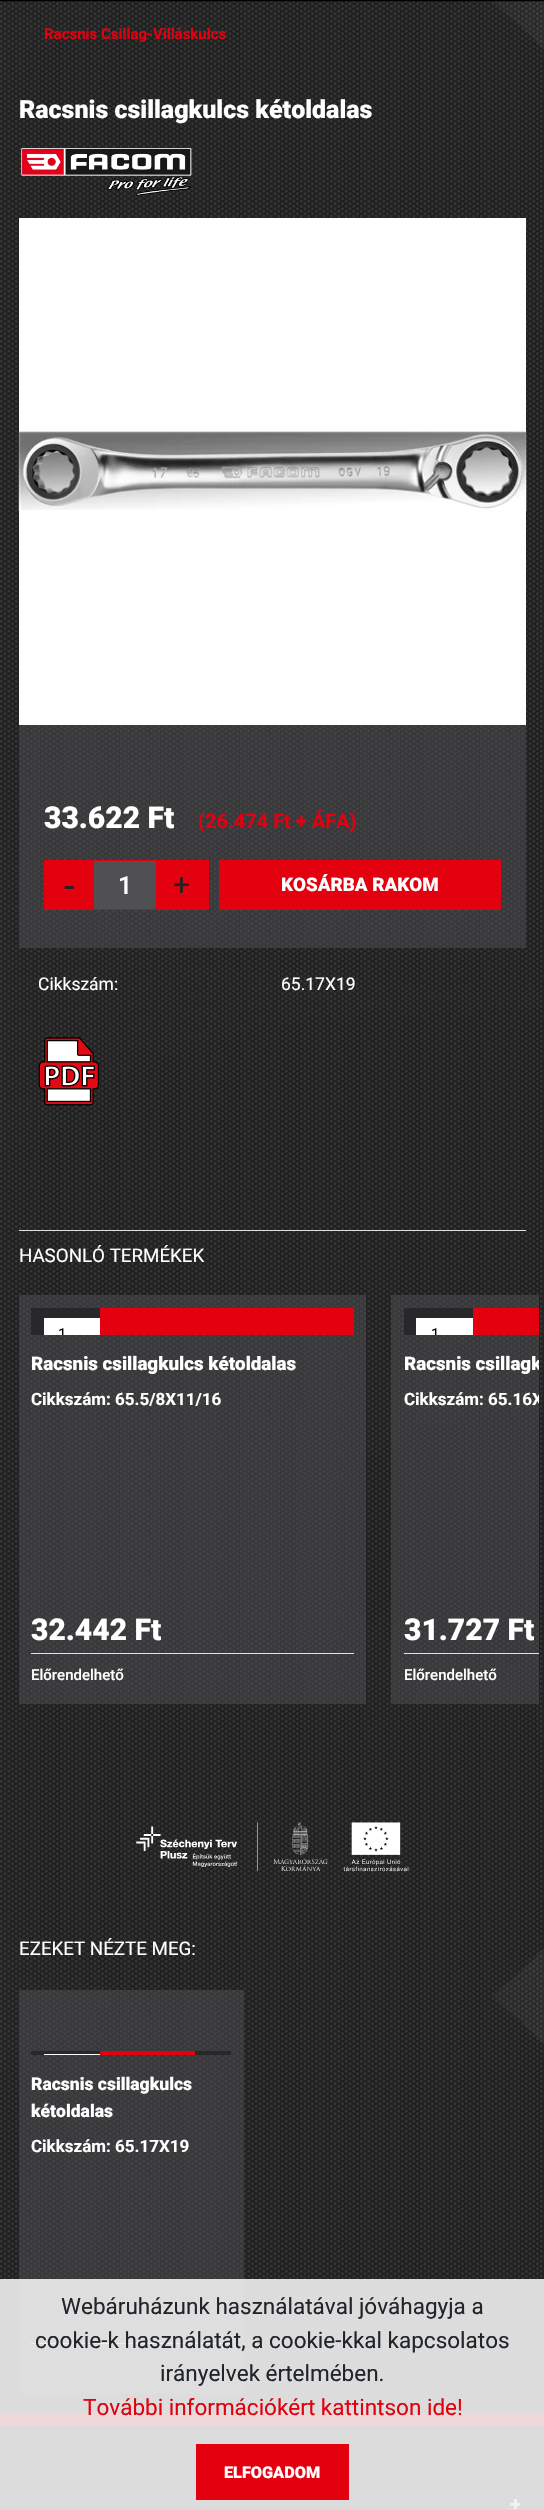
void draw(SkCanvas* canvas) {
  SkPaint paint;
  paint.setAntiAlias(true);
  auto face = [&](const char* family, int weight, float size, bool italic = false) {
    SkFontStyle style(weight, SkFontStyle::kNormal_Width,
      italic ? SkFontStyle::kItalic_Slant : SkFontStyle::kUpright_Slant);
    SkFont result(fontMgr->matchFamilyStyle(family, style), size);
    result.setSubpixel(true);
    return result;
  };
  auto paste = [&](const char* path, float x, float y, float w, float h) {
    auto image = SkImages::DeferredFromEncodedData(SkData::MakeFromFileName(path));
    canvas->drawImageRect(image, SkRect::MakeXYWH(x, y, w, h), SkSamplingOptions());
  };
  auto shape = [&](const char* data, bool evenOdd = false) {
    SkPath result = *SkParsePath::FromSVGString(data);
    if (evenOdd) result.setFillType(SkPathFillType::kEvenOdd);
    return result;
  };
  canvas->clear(0xff000000);
  paste("img/1.png", 0, 1, 544, 2413);
  paint.setColor(0xff282729);
  canvas->drawPath(shape("M33.5 37L32.5 38L27 32.5L28 31.5Z"), paint);
  canvas->drawPath(shape("M33.5 28L28 33.5L27 32.5L32.5 27Z"), paint);
  paste("img/2.png", 21, 148, 171, 48);
  paint.setColor(0xffffffff);
  canvas->drawRect(SkRect::MakeXYWH(19, 218, 507, 507), paint);
  paste("img/3.png", 18, 431, 509, 80);
  {
    const struct { float x, y, w, h; SkColor color; } items[] = {
      {19, 725, 507, 223, 0x80505054},
      {44, 860, 165, 50, 0xffe3000f},
      {94, 861, 62, 48, 0xff505054},
      {219, 860, 282, 50, 0xffe3000f},
    };
    for (auto [x, y, w, h, color] : items) {
      paint.setColor(color);
      canvas->drawRect(SkRect::MakeXYWH(x, y, w, h), paint);
    }
  }
  paste("img/4.png", 38, 1037, 62, 69);
  {
    const struct { float x, y, w, h; SkColor color; } items[] = {
      {19, 1230, 507, 1, 0xffe2e2e2},
      {19, 1295, 347, 409, 0x80505054},
      {31, 1308, 69, 27, 0xff282729},
      {44, 1318, 56, 17, 0xffffffff},
      {100, 1308, 254, 27, 0xffe3000f},
      {31, 1653, 323, 1, 0xffe2e2e2},
      {391, 1295, 148, 409, 0x80505054},
      {404, 1308, 69, 27, 0xff282729},
      {416, 1318, 57, 17, 0xffffffff},
      {473, 1308, 66, 27, 0xffe3000f},
      {404, 1653, 135, 1, 0xffe2e2e2},
    };
    for (auto [x, y, w, h, color] : items) {
      paint.setColor(color);
      canvas->drawRect(SkRect::MakeXYWH(x, y, w, h), paint);
    }
  }
  paste("img/5.png", 136, 1822, 273, 50);
  {
    const struct { float x, y, w, h; SkColor color; } items[] = {
      {19, 1990, 225, 404, 0x80505054},
      {31, 2051, 200, 4, 0xff282729},
      {44, 2054, 56, 1, 0xffffffff},
      {100, 2051, 95, 4, 0xffe3000f},
      {31, 2343, 200, 1, 0xffe2e2e2},
      {0, 2426, 544, 84, 0xff242424},
      {0, 2414, 544, 12, 0xffe60003},
      {514, 2499, 3, 10, 0xffffffff},
      {510, 2503, 10, 3, 0xffffffff},
      {0, 2279, 544, 231, 0xe6f0f0f0},
      {196, 2444, 153, 56, 0xffe3000f},
    };
    for (auto [x, y, w, h, color] : items) {
      paint.setColor(color);
      canvas->drawRect(SkRect::MakeXYWH(x, y, w, h), paint);
    }
  }
  auto f0 = face("Roboto", 700, 15);
  canvas->drawString("Racsnis Csillag-Villáskulcs", 44, 39, f0, paint);
  auto f1 = face("Roboto", 900, 25);
  paint.setColor(0xffffffff);
  canvas->drawString("Racsnis csillagkulcs kétoldalas", 19, 118, f1, paint);
  auto f2 = face("Roboto", 900, 30);
  canvas->drawString("33.622 Ft", 44, 828, f2, paint);
  auto f3 = face("Roboto", 700, 20);
  paint.setColor(0xffe3000f);
  canvas->drawString("(26.474 Ft + ÁFA)", 198, 828, f3, paint);
  auto f4 = face("Roboto", 400, 38);
  paint.setColor(0xff222222);
  canvas->drawString("-", 64, 899, f4, paint);
  auto f5 = face("Roboto", 500, 25);
  paint.setColor(0xffffffff);
  canvas->drawString("1", 118, 894, f5, paint);
  auto f6 = face("Roboto", 400, 30);
  paint.setColor(0xff222222);
  canvas->drawString("+", 173, 895, f6, paint);
  auto f7 = face("Roboto", 900, 18.75f);
  paint.setColor(0xffffffff);
  canvas->drawString("KOSÁRBA RAKOM", 281, 891, f7, paint);
  auto f8 = face("Roboto", 400, 17.5f);
  canvas->drawString("Cikkszám:", 38, 990, f8, paint);
  canvas->drawString("65.17X19", 281, 990, f8, paint);
  auto f9 = face("Roboto", 400, 18.75f);
  canvas->drawString("HASONLÓ TERMÉKEK", 19, 1262, f9, paint);
  canvas->save();
  canvas->clipRect(SkRect::MakeXYWH(46, 1325, 33, 10));
  auto f10 = face("Roboto", 400, 15);
  paint.setColor(0xff000000);
  canvas->drawString("1", 58, 1339, f10, paint);
  canvas->restore();
  paint.setColor(0xffffffff);
  canvas->drawString("Racsnis csillagkulcs kétoldalas", 31, 1370, f7, paint);
  auto f11 = face("Roboto", 700, 17);
  canvas->drawString("Cikkszám: 65.5/8X11/16", 31, 1405, f11, paint);
  canvas->drawString("32.442 Ft", 31, 1640, f2, paint);
  auto f12 = face("Roboto", 500, 15);
  canvas->drawString("Előrendelhető", 31, 1680, f12, paint);
  canvas->save();
  canvas->clipRect(SkRect::MakeXYWH(419, 1325, 32, 10));
  paint.setColor(0xff000000);
  canvas->drawString("1", 431, 1339, f10, paint);
  canvas->restore();
  canvas->save();
  canvas->clipRect(SkRect::MakeXYWH(6, 1276, 533, 428));
  paint.setColor(0xffffffff);
  canvas->drawString("Racsnis csillagk", 404, 1370, f7, paint);
  canvas->restore();
  canvas->drawString("Cikkszám:", 404, 1405, f11, paint);
  canvas->save();
  canvas->clipRect(SkRect::MakeXYWH(6, 1276, 533, 428));
  canvas->drawString("65.16X", 488, 1405, f11, paint);
  canvas->restore();
  canvas->drawString("31.727 Ft", 404, 1640, f2, paint);
  canvas->drawString("Előrendelhető", 404, 1680, f12, paint);
  canvas->drawString("EZEKET NÉZTE MEG:", 19, 1955, f9, paint);
  auto f13 = face("Roboto", 900, 17.5f);
  canvas->drawString("Racsnis csillagkulcs", 31, 2090, f13, paint);
  canvas->drawString("kétoldalas", 31, 2117, f13, paint);
  canvas->drawString("Cikkszám: 65.17X19", 31, 2152, f11, paint);
  auto f14 = face("Roboto", 400, 22.5f);
  paint.setColor(0xff212529);
  {
    const struct { const char* s; float x, y; } items[] = {
      {"Webáruházunk használatával jóváhagyja a", 61, 2314},
      {"cookie-k használatát, a cookie-kkal kapcsolatos", 35, 2348},
      {"irányelvek értelmében.", 160, 2381},
    };
    for (auto [s, x, y] : items) {
      canvas->drawString(s, x, y, f14, paint);
    }
  }
  paint.setColor(0xffe3000f);
  canvas->drawString("További információkért kattintson ide!", 83, 2415, f14, paint);
  auto f15 = face("Roboto", 900, 16.25f);
  paint.setColor(0xffffffff);
  canvas->drawString("ELFOGADOM", 224, 2478, f15, paint);
}
